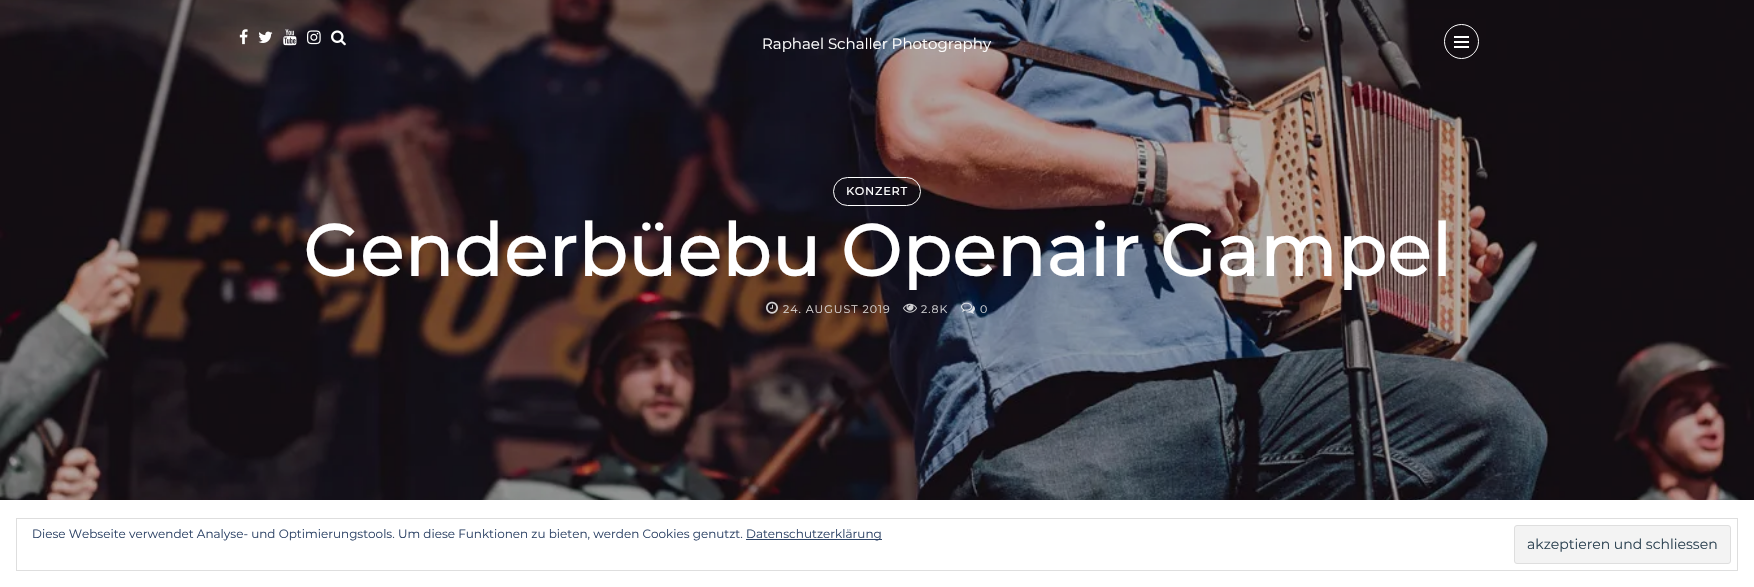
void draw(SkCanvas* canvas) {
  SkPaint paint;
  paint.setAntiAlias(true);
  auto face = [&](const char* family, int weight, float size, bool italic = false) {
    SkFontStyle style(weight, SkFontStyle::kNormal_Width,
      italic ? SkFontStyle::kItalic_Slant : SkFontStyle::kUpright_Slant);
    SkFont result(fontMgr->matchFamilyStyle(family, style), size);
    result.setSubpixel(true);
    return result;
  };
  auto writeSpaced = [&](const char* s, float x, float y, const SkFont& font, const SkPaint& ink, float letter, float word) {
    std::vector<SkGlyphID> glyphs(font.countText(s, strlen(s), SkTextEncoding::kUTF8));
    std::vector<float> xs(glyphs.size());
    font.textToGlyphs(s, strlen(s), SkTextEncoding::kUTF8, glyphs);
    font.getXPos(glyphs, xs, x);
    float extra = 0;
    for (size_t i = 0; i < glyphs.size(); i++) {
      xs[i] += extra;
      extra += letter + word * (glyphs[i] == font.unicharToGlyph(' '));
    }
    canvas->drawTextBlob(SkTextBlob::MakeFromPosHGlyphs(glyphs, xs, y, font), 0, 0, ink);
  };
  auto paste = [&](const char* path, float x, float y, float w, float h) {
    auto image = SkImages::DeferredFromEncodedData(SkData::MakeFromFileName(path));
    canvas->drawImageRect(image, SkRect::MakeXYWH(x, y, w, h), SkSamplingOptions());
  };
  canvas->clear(0xffffffff);
  paste("img/6.png", 0, 0, 1754, 500);
  paste("img/1.png", 239, 29, 9, 16);
  paste("img/2.png", 258, 31, 15, 12);
  paste("img/3.png", 283, 29, 14, 17);
  paste("img/4.png", 307, 30, 14, 15);
  paste("img/5.png", 331, 30, 15, 16);
  paint.setStroke(true);
  paint.setStrokeWidth(1);
  paint.setColor(0xffffffff);
  canvas->drawCircle(1461.5f, 41.5f, 17, paint);
  paint.setStroke(false);
  {
    const struct { float x, y, w, h; SkColor color; } items[] = {
      {1454, 41, 15, 2, 0xffffffff},
      {1454, 36, 15, 2, 0xffffffff},
      {1454, 46, 15, 2, 0xffffffff},
    };
    for (auto [x, y, w, h, color] : items) {
      paint.setColor(color);
      canvas->drawRect(SkRect::MakeXYWH(x, y, w, h), paint);
    }
  }
  paint.setStroke(true);
  canvas->drawRoundRect(SkRect::MakeXYWH(833.5f, 177.5f, 87, 28), 14, 14, paint);
  paste("img/7.png", 766, 301, 12, 13);
  paste("img/8.png", 903, 303, 14, 10);
  paste("img/9.png", 961, 302, 14, 12);
  paint.setColor(0xffdedede);
  canvas->drawRect(SkRect::MakeXYWH(16.5f, 518.5f, 1721, 52), paint);
  paint.setStroke(false);
  paint.setColor(0xff2e4467);
  canvas->drawRect(SkRect::MakeXYWH(746, 539, 136, 1), paint);
  paint.setColor(0xfff3f3f3);
  canvas->drawRoundRect(SkRect::MakeXYWH(1514.5f, 525.5f, 216, 38), 2.5f, 2.5f, paint);
  paint.setStroke(true);
  paint.setColor(0xffdedede);
  canvas->drawRoundRect(SkRect::MakeXYWH(1514.5f, 525.5f, 216, 38), 2.5f, 2.5f, paint);
  auto f0 = face("Montserrat", 100, 15);
  paint.setStroke(false);
  paint.setColor(0xffffffff);
  canvas->drawString("Raphael Schaller Photography", 762, 49, f0, paint);
  auto f1 = face("Montserrat", 700, 11);
  writeSpaced("KONZERT", 846, 195, f1, paint, 1, 0);
  auto f2 = face("Montserrat", 700, 72);
  writeSpaced("Genderbüebu Openair Gampel", 303, 276, f2, paint, 1, 0);
  auto f3 = face("Montserrat", 100, 11);
  paint.setColor(0xffd9d4d2);
  writeSpaced("24. AUGUST 2019", 783, 313, f3, paint, 1, 0);
  paint.setColor(0xffd0d0d3);
  writeSpaced("2.8K", 921, 313, f3, paint, 1, 0);
  writeSpaced("0", 980, 313, f3, paint, 1, 0);
  auto f4 = face("Montserrat", 100, 12);
  paint.setColor(0xff2e4467);
  canvas->drawString("Diese Webseite verwendet Analyse- und Optimierungstools. Um diese Funktionen zu bieten, werden Cookies genutzt.", 32, 538, f4, paint);
  canvas->drawString("Datenschutzerklärung", 746, 538, f4, paint);
  auto f5 = face("Montserrat", 100, 14);
  paint.setColor(0xff2e4453);
  canvas->drawString("akzeptieren und schliessen", 1527, 549, f5, paint);
}
